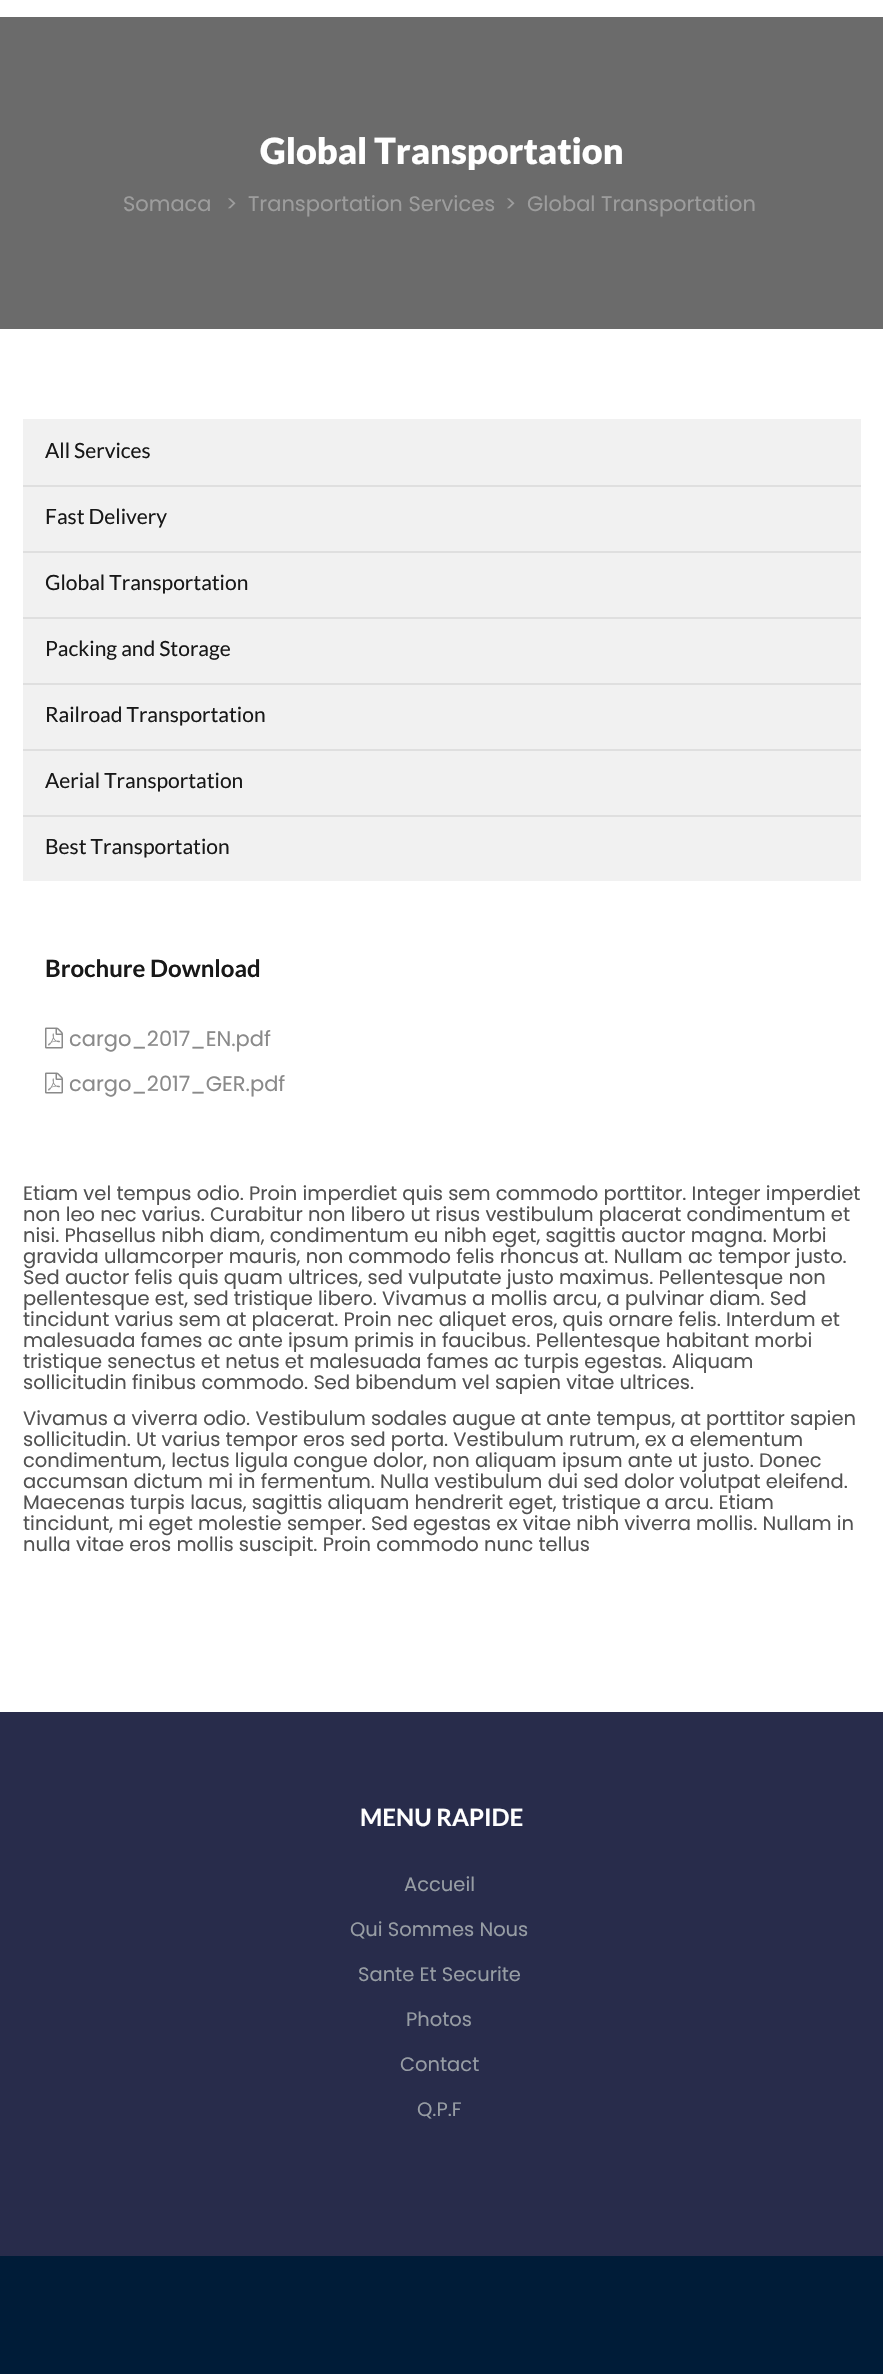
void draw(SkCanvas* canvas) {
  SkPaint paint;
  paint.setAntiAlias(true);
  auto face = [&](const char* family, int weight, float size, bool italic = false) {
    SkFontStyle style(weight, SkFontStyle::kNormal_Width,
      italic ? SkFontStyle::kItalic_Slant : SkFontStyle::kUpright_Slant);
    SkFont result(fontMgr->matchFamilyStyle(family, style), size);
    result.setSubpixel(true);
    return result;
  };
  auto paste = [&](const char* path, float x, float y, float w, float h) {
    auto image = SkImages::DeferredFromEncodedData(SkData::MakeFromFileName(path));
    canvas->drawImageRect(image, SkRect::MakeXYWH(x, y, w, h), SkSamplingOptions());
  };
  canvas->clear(0xffffffff);
  {
    const struct { float x, y, w, h; SkColor color; } items[] = {
      {0, 17, 883, 312, 0xff6b6b6b},
      {23, 419, 838, 66, 0xfff1f1f1},
      {23, 487, 838, 64, 0xfff1f1f1},
      {23, 485, 838, 2, 0xffdfdfdf},
      {23, 553, 838, 64, 0xfff1f1f1},
      {23, 551, 838, 2, 0xffdfdfdf},
      {23, 619, 838, 64, 0xfff1f1f1},
      {23, 617, 838, 2, 0xffdfdfdf},
      {23, 685, 838, 64, 0xfff1f1f1},
      {23, 683, 838, 2, 0xffdfdfdf},
      {23, 751, 838, 64, 0xfff1f1f1},
      {23, 749, 838, 2, 0xffdfdfdf},
      {23, 817, 838, 64, 0xfff1f1f1},
      {23, 815, 838, 2, 0xffdfdfdf},
    };
    for (auto [x, y, w, h, color] : items) {
      paint.setColor(color);
      canvas->drawRect(SkRect::MakeXYWH(x, y, w, h), paint);
    }
  }
  paste("img/1.png", 45, 1027, 18, 22);
  paste("img/1.png", 45, 1072, 18, 22);
  paint.setColor(0xff282c4b);
  canvas->drawRect(SkRect::MakeXYWH(0, 1712, 883, 544), paint);
  paint.setColor(0xff001c38);
  canvas->drawRect(SkRect::MakeXYWH(0, 2256, 883, 118), paint);
  auto f0 = face("Lato", 900, 36);
  paint.setColor(0xffffffff);
  canvas->drawString("Global Transportation", 260, 164, f0, paint);
  auto f1 = face("Poppins", 400, 21);
  paint.setColor(0xff9d9d9d);
  {
    const struct { const char* s; float x, y; } items[] = {
      {"Somaca", 123, 211},
      {">", 226, 211},
      {"Transportation Services", 248, 211},
      {">", 505, 211},
      {"Global Transportation", 527, 211},
    };
    for (auto [s, x, y] : items) {
      canvas->drawString(s, x, y, f1, paint);
    }
  }
  auto f2 = face("Lato", 400, 21);
  paint.setColor(0xff181818);
  {
    const struct { const char* s; float x, y; } items[] = {
      {"All Services", 45, 458},
      {"Fast Delivery", 45, 524},
      {"Global Transportation", 45, 590},
      {"Packing and Storage", 45, 656},
      {"Railroad Transportation", 45, 722},
      {"Aerial Transportation", 45, 788},
      {"Best Transportation", 45, 854},
    };
    for (auto [s, x, y] : items) {
      canvas->drawString(s, x, y, f2, paint);
    }
  }
  auto f3 = face("Lato", 700, 24);
  canvas->drawString("Brochure Download", 45, 977, f3, paint);
  paint.setColor(0xff8a8a8a);
  canvas->drawString("cargo_2017_EN.pdf", 69, 1046, f1, paint);
  canvas->drawString("cargo_2017_GER.pdf", 69, 1091, f1, paint);
  auto f4 = face("Poppins", 400, 19.5f);
  paint.setColor(0xff525252);
  {
    const struct { const char* s; float x, y; } items[] = {
      {"Etiam vel tempus odio. Proin imperdiet quis sem commodo porttitor. Integer imperdiet", 23, 1200},
      {"non leo nec varius. Curabitur non libero ut risus vestibulum placerat condimentum et", 23, 1221},
      {"nisi. Phasellus nibh diam, condimentum eu nibh eget, sagittis auctor magna. Morbi", 23, 1242},
      {"gravida ullamcorper mauris, non commodo felis rhoncus at. Nullam ac tempor justo.", 23, 1263},
      {"Sed auctor felis quis quam ultrices, sed vulputate justo maximus. Pellentesque non", 23, 1284},
      {"pellentesque est, sed tristique libero. Vivamus a mollis arcu, a pulvinar diam. Sed", 23, 1305},
      {"tincidunt varius sem at placerat. Proin nec aliquet eros, quis ornare felis. Interdum et", 23, 1326},
      {"malesuada fames ac ante ipsum primis in faucibus. Pellentesque habitant morbi", 23, 1347},
      {"tristique senectus et netus et malesuada fames ac turpis egestas. Aliquam", 23, 1368},
      {"sollicitudin finibus commodo. Sed bibendum vel sapien vitae ultrices.", 23, 1389},
      {"Vivamus a viverra odio. Vestibulum sodales augue at ante tempus, at porttitor sapien", 23, 1425},
      {"sollicitudin. Ut varius tempor eros sed porta. Vestibulum rutrum, ex a elementum", 23, 1446},
      {"condimentum, lectus ligula congue dolor, non aliquam ipsum ante ut justo. Donec", 23, 1467},
      {"accumsan dictum mi in fermentum. Nulla vestibulum dui sed dolor volutpat eleifend.", 23, 1488},
      {"Maecenas turpis lacus, sagittis aliquam hendrerit eget, tristique a arcu. Etiam", 23, 1509},
      {"tincidunt, mi eget molestie semper. Sed egestas ex vitae nibh viverra mollis. Nullam in", 23, 1530},
      {"nulla vitae eros mollis suscipit. Proin commodo nunc tellus", 23, 1551},
    };
    for (auto [s, x, y] : items) {
      canvas->drawString(s, x, y, f4, paint);
    }
  }
  paint.setColor(0xffffffff);
  canvas->drawString("MENU RAPIDE", 360, 1826, f3, paint);
  paint.setColor(0xff979da4);
  {
    const struct { const char* s; float x, y; } items[] = {
      {"Accueil", 404, 1891},
      {"Qui Sommes Nous", 350, 1936},
      {"Sante Et Securite", 358, 1981},
      {"Photos", 406, 2026},
      {"Contact", 400, 2071},
      {"Q.P.F", 417, 2116},
    };
    for (auto [s, x, y] : items) {
      canvas->drawString(s, x, y, f4, paint);
    }
  }
}
